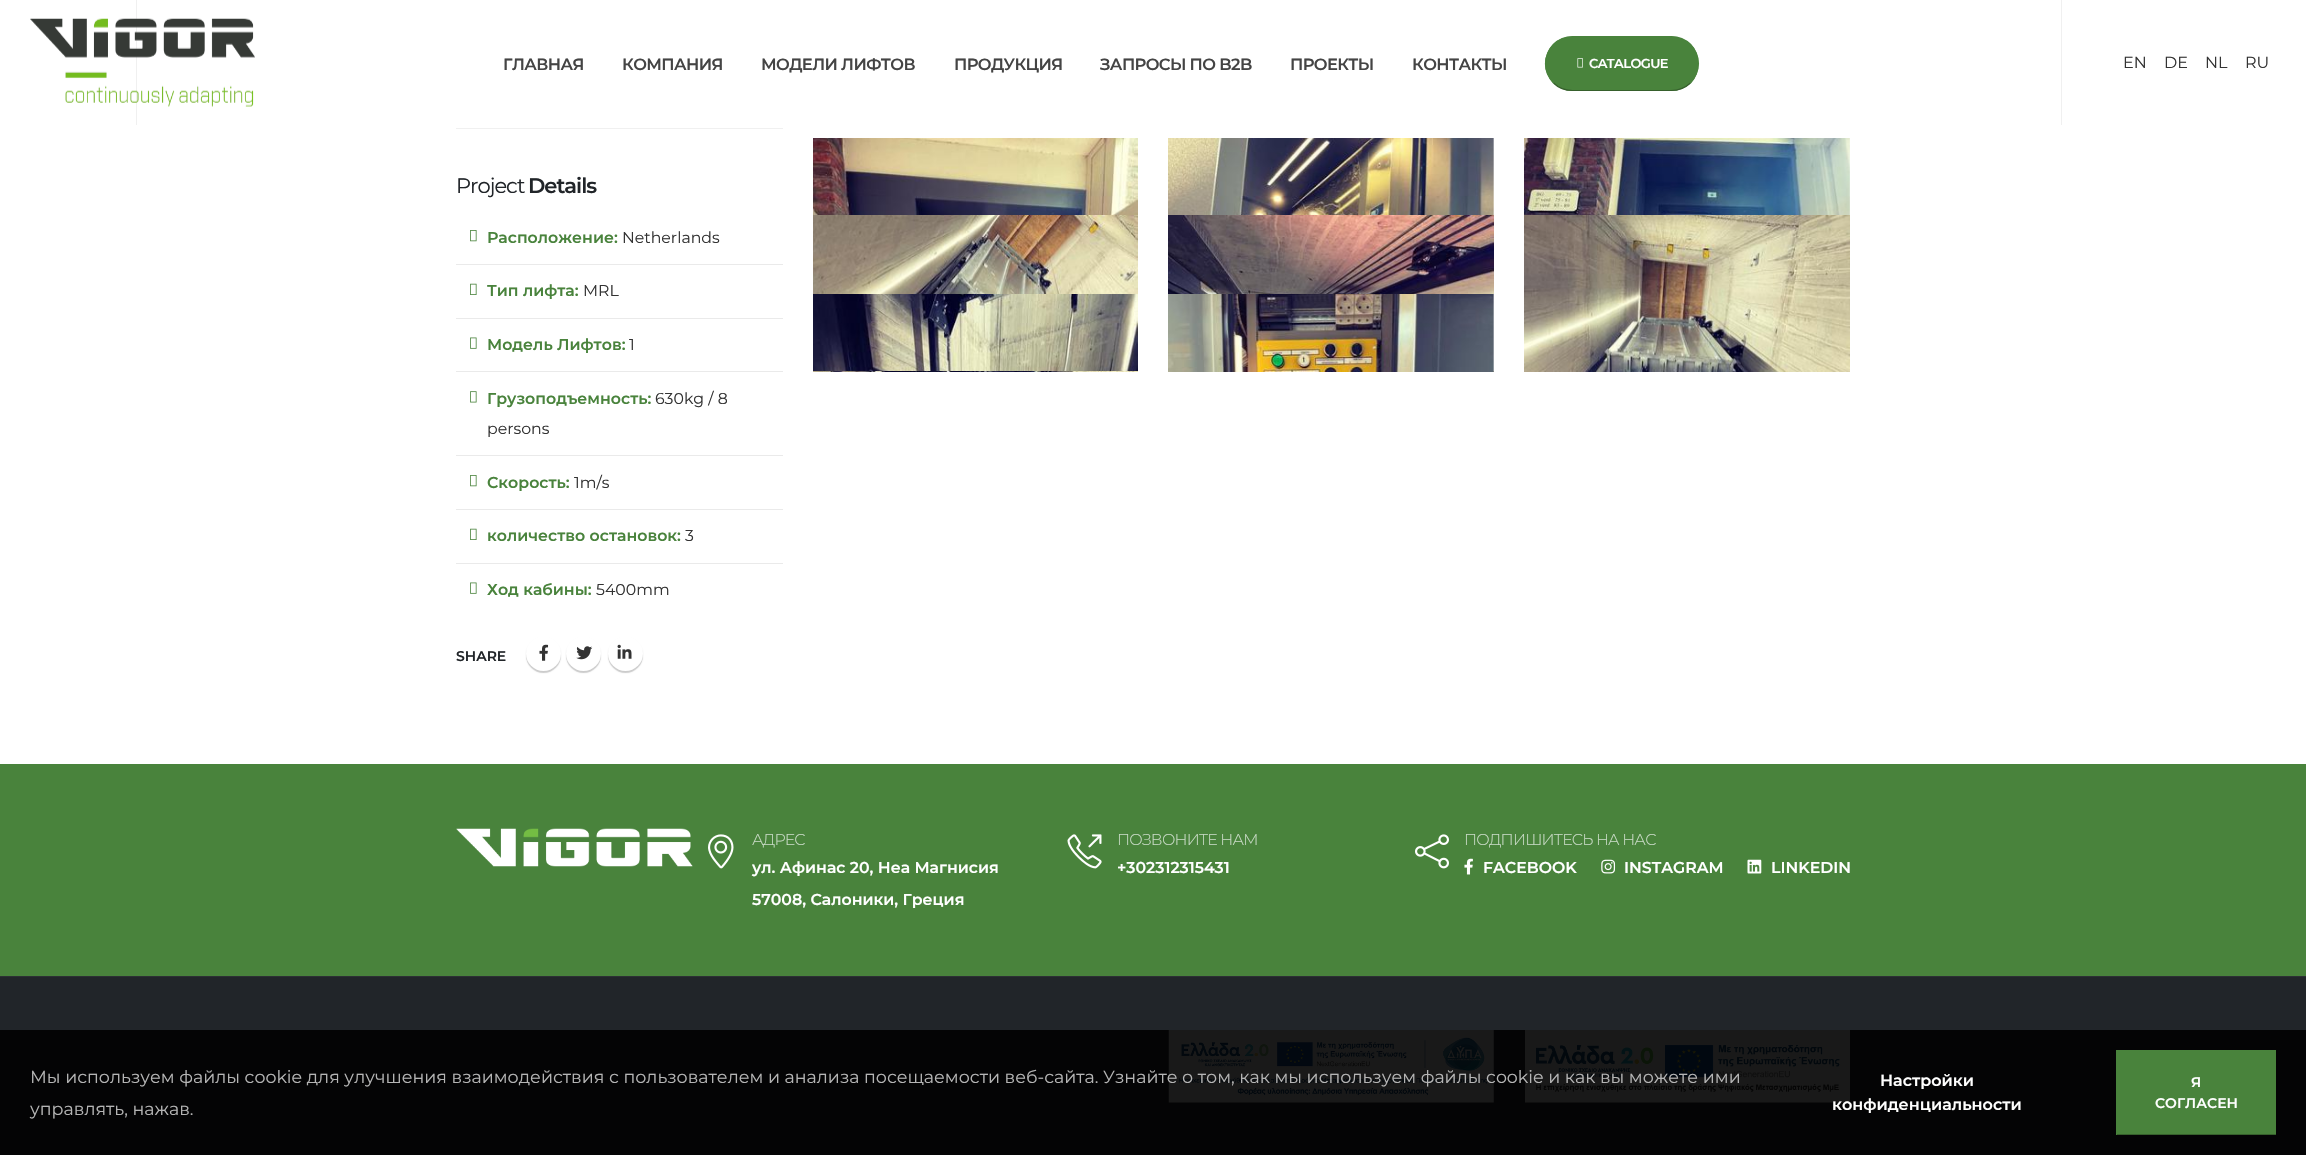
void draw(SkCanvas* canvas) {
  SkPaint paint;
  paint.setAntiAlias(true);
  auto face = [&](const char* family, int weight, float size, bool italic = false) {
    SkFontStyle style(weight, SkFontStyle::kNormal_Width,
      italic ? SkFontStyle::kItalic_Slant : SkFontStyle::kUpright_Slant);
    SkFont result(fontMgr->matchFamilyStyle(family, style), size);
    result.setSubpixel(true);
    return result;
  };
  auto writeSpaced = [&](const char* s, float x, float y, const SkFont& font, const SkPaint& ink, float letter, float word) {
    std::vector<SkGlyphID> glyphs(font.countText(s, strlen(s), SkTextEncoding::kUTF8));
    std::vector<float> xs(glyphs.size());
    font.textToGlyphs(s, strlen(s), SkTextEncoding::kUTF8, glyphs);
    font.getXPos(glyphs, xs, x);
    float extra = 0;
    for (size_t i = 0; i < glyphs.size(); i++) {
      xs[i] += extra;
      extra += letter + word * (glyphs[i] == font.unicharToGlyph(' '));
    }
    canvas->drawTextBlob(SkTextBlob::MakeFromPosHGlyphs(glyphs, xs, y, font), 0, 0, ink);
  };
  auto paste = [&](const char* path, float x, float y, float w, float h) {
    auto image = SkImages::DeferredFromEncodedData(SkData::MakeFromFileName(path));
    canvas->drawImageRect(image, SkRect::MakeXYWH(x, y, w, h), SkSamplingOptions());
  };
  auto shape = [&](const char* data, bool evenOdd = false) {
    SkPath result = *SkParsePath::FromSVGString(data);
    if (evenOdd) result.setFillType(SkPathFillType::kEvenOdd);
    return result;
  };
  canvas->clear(0xffffffff);
  paint.setColor(0xfff0f0f0);
  canvas->drawRect(SkRect::MakeXYWH(136, 0, 1, 125), paint);
  paste("img/1.png", 30, 18, 225, 89);
  paint.setColor(0xff49833c);
  canvas->drawRoundRect(SkRect::MakeXYWH(1545, 36, 154, 55), 27.5f, 27.5f, paint);
  paint.setStroke(true);
  paint.setStrokeWidth(1.2f);
  paint.setColor(0xff36602c);
  canvas->drawPath(shape("M1690.5 83C1685 88 1678.5 90.5 1671 90.5H1572.5C1565.5 90.5 1558.5 88 1553.5 83"), paint);
  paint.setColor(0xff49833c);
  canvas->drawPath(shape("M1553.5 83C1548.5 77.5 1545.5 71 1545.5 64C1545.5 56.5 1548.5 50 1553.5 44.5C1558.5 39.5 1565.5 37 1572.5 37H1671C1678.5 37 1685 39.5 1690.5 44.5C1695.5 50 1698 56.5 1698 63.5C1698 71 1695.5 77.5 1690.5 83"), paint);
  paste("img/2.png", 1577, 58, 6, 10);
  paint.setStroke(false);
  {
    const struct { float x, y, w, h; SkColor color; } items[] = {
      {2061, 0, 1, 125, 0xfff0f0f0},
      {456, 128, 327, 1, 0xfff0f0f0},
      {456, 264, 327, 1, 0xffeaeaea},
    };
    for (auto [x, y, w, h, color] : items) {
      paint.setColor(color);
      canvas->drawRect(SkRect::MakeXYWH(x, y, w, h), paint);
    }
  }
  paste("img/3.png", 470, 230, 7, 12);
  canvas->drawRect(SkRect::MakeXYWH(456, 318, 327, 1), paint);
  paste("img/4.png", 470, 283, 7, 12);
  canvas->drawRect(SkRect::MakeXYWH(456, 371, 327, 1), paint);
  paste("img/5.png", 470, 337, 7, 12);
  canvas->drawRect(SkRect::MakeXYWH(456, 455, 327, 1), paint);
  paste("img/6.png", 470, 391, 7, 12);
  canvas->drawRect(SkRect::MakeXYWH(456, 509, 327, 1), paint);
  paste("img/3.png", 470, 475, 7, 12);
  canvas->drawRect(SkRect::MakeXYWH(456, 563, 327, 1), paint);
  paste("img/4.png", 470, 528, 7, 12);
  paste("img/5.png", 470, 582, 7, 12);
  paint.setColor(0x33000000);
  paint.setMaskFilter(SkMaskFilter::MakeBlur(kNormal_SkBlurStyle, 0.5f));
  canvas->drawRoundRect(SkRect::MakeXYWH(526, 638, 35, 35), 17.5f, 17.5f, paint);
  paint.setMaskFilter(nullptr);
  paint.setColor(0xffffffff);
  canvas->drawCircle(543.5f, 653.5f, 17.5f, paint);
  paste("img/7.png", 539, 644, 10, 17);
  paint.setColor(0x33000000);
  paint.setMaskFilter(SkMaskFilter::MakeBlur(kNormal_SkBlurStyle, 0.5f));
  canvas->drawRoundRect(SkRect::MakeXYWH(566, 638, 35, 35), 17.5f, 17.5f, paint);
  paint.setMaskFilter(nullptr);
  paint.setColor(0xffffffff);
  canvas->drawCircle(583.5f, 653.5f, 17.5f, paint);
  paste("img/8.png", 576, 646, 17, 14);
  paint.setColor(0x33000000);
  paint.setMaskFilter(SkMaskFilter::MakeBlur(kNormal_SkBlurStyle, 0.5f));
  canvas->drawRoundRect(SkRect::MakeXYWH(608, 638, 35, 35), 17.5f, 17.5f, paint);
  paint.setMaskFilter(nullptr);
  paint.setColor(0xffffffff);
  canvas->drawCircle(625.5f, 653.5f, 17.5f, paint);
  paste("img/9.png", 617, 644, 15, 15);
  paste("img/10.png", 813, 138, 325, 77);
  paste("img/11.png", 1168, 138, 326, 77);
  paste("img/12.png", 1524, 138, 326, 77);
  paste("img/13.png", 813, 215, 325, 157);
  paste("img/14.png", 1168, 215, 326, 157);
  paste("img/15.png", 1524, 215, 326, 157);
  paste("img/16.png", 813, 294, 325, 77);
  canvas->drawRect(SkRect::MakeXYWH(1493, 294, 1, 77), paint);
  paste("img/17.png", 1168, 294, 326, 78);
  paint.setColor(0xff49833c);
  canvas->drawRect(SkRect::MakeXYWH(0, 764, 2306, 212), paint);
  paste("img/18.png", 456, 828, 237, 39);
  paste("img/19.png", 708, 834, 26, 35);
  paste("img/20.png", 1067, 834, 35, 35);
  paste("img/21.png", 1415, 834, 34, 35);
  paste("img/22.png", 1464, 858, 9, 17);
  paste("img/23.png", 1601, 859, 15, 15);
  paste("img/24.png", 1747, 859, 15, 15);
  paint.setColor(0xff212529);
  canvas->drawRect(SkRect::MakeXYWH(0, 977, 2306, 178), paint);
  paint.setColor(0xff2c3034);
  canvas->drawRect(SkRect::MakeXYWH(0, 976, 2306, 1), paint);
  paste("img/25.png", 1168, 1030, 326, 73);
  paste("img/26.png", 1525, 1030, 325, 73);
  {
    const struct { float x, y, w, h; SkColor color; } items[] = {
      {0, 1030, 2306, 125, 0xe6000000},
      {2117, 1050, 159, 84, 0xff49833c},
      {2116, 1134, 160, 1, 0xff36602c},
      {2116, 1050, 1, 85, 0xff49833c},
    };
    for (auto [x, y, w, h, color] : items) {
      paint.setColor(color);
      canvas->drawRect(SkRect::MakeXYWH(x, y, w, h), paint);
    }
  }
  auto f0 = face("Montserrat", 600, 16.25f);
  paint.setColor(0xff444444);
  {
    const struct { const char* s; float x, y; } items[] = {
      {"ГЛАВНАЯ", 503, 70},
      {"КОМПАНИЯ", 622, 70},
      {"МОДЕЛИ ЛИФТОВ", 761, 70},
      {"ПРОДУКЦИЯ", 954, 70},
      {"ЗАПРОСЫ ПО B2B", 1100, 70},
      {"ПРОЕКТЫ", 1290, 70},
      {"КОНТАКТЫ", 1412, 70},
    };
    for (auto [s, x, y] : items) {
      writeSpaced(s, x, y, f0, paint, -0.6f, 0);
    }
  }
  auto f1 = face("Montserrat", 600, 13);
  paint.setColor(0xffffffff);
  writeSpaced("CATALOGUE", 1589, 68, f1, paint, -0.6f, 0);
  auto f2 = face("Montserrat", 400, 16);
  paint.setColor(0xff333333);
  {
    const struct { const char* s; float x, y; } items[] = {
      {"EN", 2123, 68},
      {"DE", 2164, 68},
      {"NL", 2205, 68},
      {"RU", 2245, 68},
    };
    for (auto [s, x, y] : items) {
      canvas->drawString(s, x, y, f2, paint);
    }
  }
  auto f3 = face("Montserrat", 400, 21);
  paint.setColor(0xff212529);
  writeSpaced("Project", 456, 193, f3, paint, -1, 0);
  auto f4 = face("Montserrat", 600, 21);
  writeSpaced("Details", 528, 193, f4, paint, -1, 0);
  auto f5 = face("Montserrat", 600, 15.75f);
  paint.setColor(0xff49833c);
  canvas->drawString("Расположение:", 487, 243, f5, paint);
  auto f6 = face("Montserrat", 400, 15.75f);
  paint.setColor(0xff333333);
  canvas->drawString("Netherlands", 622, 243, f6, paint);
  paint.setColor(0xff49833c);
  canvas->drawString("Тип лифта:", 487, 296, f5, paint);
  paint.setColor(0xff333333);
  canvas->drawString("MRL", 583, 296, f6, paint);
  paint.setColor(0xff49833c);
  canvas->drawString("Модель Лифтов:", 487, 350, f5, paint);
  paint.setColor(0xff333333);
  canvas->drawString("1", 629, 350, f6, paint);
  paint.setColor(0xff49833c);
  canvas->drawString("Грузоподъемность:", 487, 404, f5, paint);
  paint.setColor(0xff333333);
  canvas->drawString("630kg / 8", 655, 404, f6, paint);
  canvas->drawString("persons", 487, 434, f6, paint);
  paint.setColor(0xff49833c);
  canvas->drawString("Скорость:", 487, 488, f5, paint);
  paint.setColor(0xff333333);
  canvas->drawString("1m/s", 574, 488, f6, paint);
  paint.setColor(0xff49833c);
  canvas->drawString("количество остановок:", 487, 541, f5, paint);
  paint.setColor(0xff333333);
  canvas->drawString("3", 685, 541, f6, paint);
  paint.setColor(0xff49833c);
  canvas->drawString("Ход кабины:", 487, 595, f5, paint);
  paint.setColor(0xff333333);
  canvas->drawString("5400mm", 596, 595, f6, paint);
  auto f7 = face("Montserrat", 600, 14);
  paint.setColor(0xff212529);
  canvas->drawString("SHARE", 456, 661, f7, paint);
  auto f8 = face("Montserrat", 300, 15.75f);
  paint.setColor(0xffc8dac5);
  writeSpaced("АДРЕС", 752, 845, f8, paint, -0.75f, 0);
  paint.setColor(0xffffffff);
  canvas->drawString("ул. Афинас 20, Неа Магнисия", 752, 873, f5, paint);
  canvas->drawString("57008, Салоники, Греция", 752, 905, f5, paint);
  paint.setColor(0xffc8dac5);
  writeSpaced("ПОЗВОНИТЕ НАМ", 1117, 845, f8, paint, -0.75f, 0);
  paint.setColor(0xffffffff);
  canvas->drawString("+302312315431", 1117, 873, f5, paint);
  paint.setColor(0xffc8dac5);
  writeSpaced("ПОДПИШИТЕСЬ НА НАС", 1464, 845, f8, paint, -0.75f, 0);
  paint.setColor(0xffffffff);
  {
    const struct { const char* s; float x, y; } items[] = {
      {"FACEBOOK", 1483, 873},
      {"INSTAGRAM", 1624, 873},
      {"LINKEDIN", 1771, 873},
    };
    for (auto [s, x, y] : items) {
      canvas->drawString(s, x, y, f5, paint);
    }
  }
  auto f9 = face("Montserrat", 400, 17.5f);
  paint.setColor(0xffb5b5b5);
  canvas->drawString("Мы используем файлы cookie для улучшения взаимодействия с пользователем и анализа посещаемости веб-сайта. Узнайте о том, как мы используем файлы cookie и как вы можете ими", 30, 1083, f9, paint);
  canvas->drawString("управлять, нажав.", 30, 1115, f9, paint);
  auto f10 = face("Montserrat", 600, 16);
  paint.setColor(0xffffffff);
  canvas->drawString("Настройки", 1880, 1086, f10, paint);
  canvas->drawString("конфиденциальности", 1832, 1110, f10, paint);
  canvas->drawString("Я", 2191, 1087, f7, paint);
  canvas->drawString("СОГЛАСЕН", 2155, 1108, f7, paint);
}
